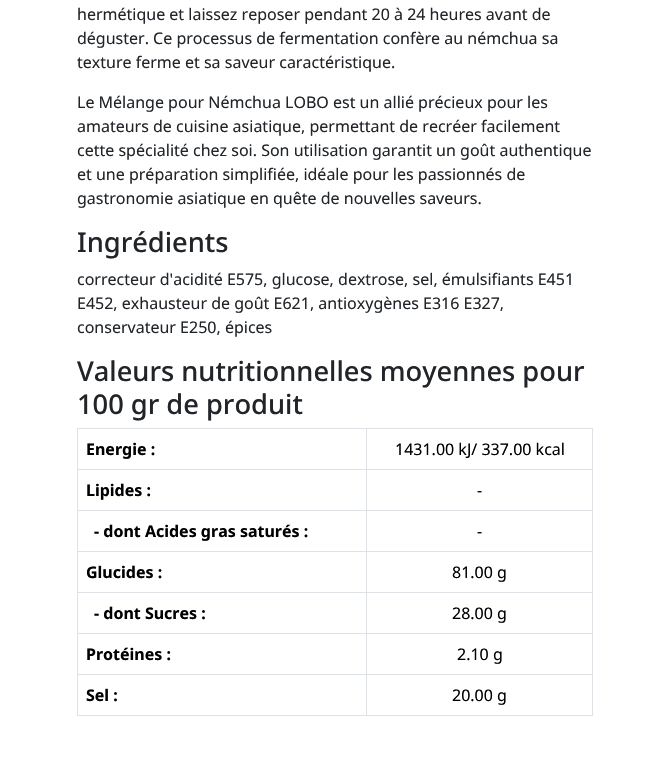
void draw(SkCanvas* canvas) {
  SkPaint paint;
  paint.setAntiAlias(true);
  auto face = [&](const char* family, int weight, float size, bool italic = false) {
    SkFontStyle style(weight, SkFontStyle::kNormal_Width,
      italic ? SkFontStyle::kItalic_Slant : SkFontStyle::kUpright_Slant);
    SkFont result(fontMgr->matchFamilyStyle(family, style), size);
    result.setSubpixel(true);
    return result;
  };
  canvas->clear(0xffffffff);
  {
    const struct { float x, y, w, h; SkColor color; } items[] = {
      {77, 428, 516, 1, 0xffdee2e6},
      {77, 469, 516, 1, 0xffdee2e6},
      {77, 510, 516, 1, 0xffdee2e6},
      {77, 551, 516, 1, 0xffdee2e6},
      {77, 592, 516, 1, 0xffdee2e6},
      {77, 633, 516, 1, 0xffdee2e6},
      {77, 674, 516, 1, 0xffdee2e6},
      {77, 715, 516, 1, 0xffdee2e6},
      {77, 428, 1, 288, 0xffdee2e6},
      {592, 428, 1, 288, 0xffdee2e6},
      {366, 428, 1, 288, 0xffdee2e6},
    };
    for (auto [x, y, w, h, color] : items) {
      paint.setColor(color);
      canvas->drawRect(SkRect::MakeXYWH(x, y, w, h), paint);
    }
  }
  auto f0 = face("Noto Sans", 400, 16);
  paint.setColor(0xff212529);
  {
    const struct { const char* s; float x, y; } items[] = {
      {"hermétique et laissez reposer pendant 20 à 24 heures avant de", 77, 20},
      {"déguster. Ce processus de fermentation confère au némchua sa", 77, 44},
      {"texture ferme et sa saveur caractéristique.", 77, 68},
      {"Le Mélange pour Némchua LOBO est un allié précieux pour les", 77, 108},
      {"amateurs de cuisine asiatique, permettant de recréer facilement", 77, 132},
      {"cette spécialité chez soi. Son utilisation garantit un goût authentique", 77, 156},
      {"et une préparation simplifiée, idéale pour les passionnés de", 77, 180},
      {"gastronomie asiatique en quête de nouvelles saveurs.", 77, 204},
    };
    for (auto [s, x, y] : items) {
      canvas->drawString(s, x, y, f0, paint);
    }
  }
  auto f1 = face("Noto Sans", 500, 27.25f);
  canvas->drawString("Ingrédients", 77, 252, f1, paint);
  {
    const struct { const char* s; float x, y; } items[] = {
      {"correcteur d'acidité E575, glucose, dextrose, sel, émulsifiants E451", 77, 285},
      {"E452, exhausteur de goût E621, antioxygènes E316 E327,", 77, 309},
      {"conservateur E250, épices", 77, 333},
    };
    for (auto [s, x, y] : items) {
      canvas->drawString(s, x, y, f0, paint);
    }
  }
  canvas->drawString("Valeurs nutritionnelles moyennes pour", 77, 381, f1, paint);
  canvas->drawString("100 gr de produit", 77, 414, f1, paint);
  auto f2 = face("Noto Sans", 700, 16);
  paint.setColor(0xff000000);
  canvas->drawString("Energie :", 86, 455, f2, paint);
  canvas->drawString("1431.00 kJ/ 337.00 kcal", 395, 455, f0, paint);
  canvas->drawString("Lipides :", 86, 496, f2, paint);
  canvas->drawString("-", 477, 496, f0, paint);
  canvas->drawString("- dont Acides gras saturés :", 94, 537, f2, paint);
  canvas->drawString("-", 477, 537, f0, paint);
  canvas->drawString("Glucides :", 86, 578, f2, paint);
  canvas->drawString("81.00 g", 452, 578, f0, paint);
  canvas->drawString("- dont Sucres :", 94, 619, f2, paint);
  canvas->drawString("28.00 g", 452, 619, f0, paint);
  canvas->drawString("Protéines :", 86, 660, f2, paint);
  canvas->drawString("2.10 g", 457, 660, f0, paint);
  canvas->drawString("Sel :", 86, 701, f2, paint);
  canvas->drawString("20.00 g", 452, 701, f0, paint);
}
